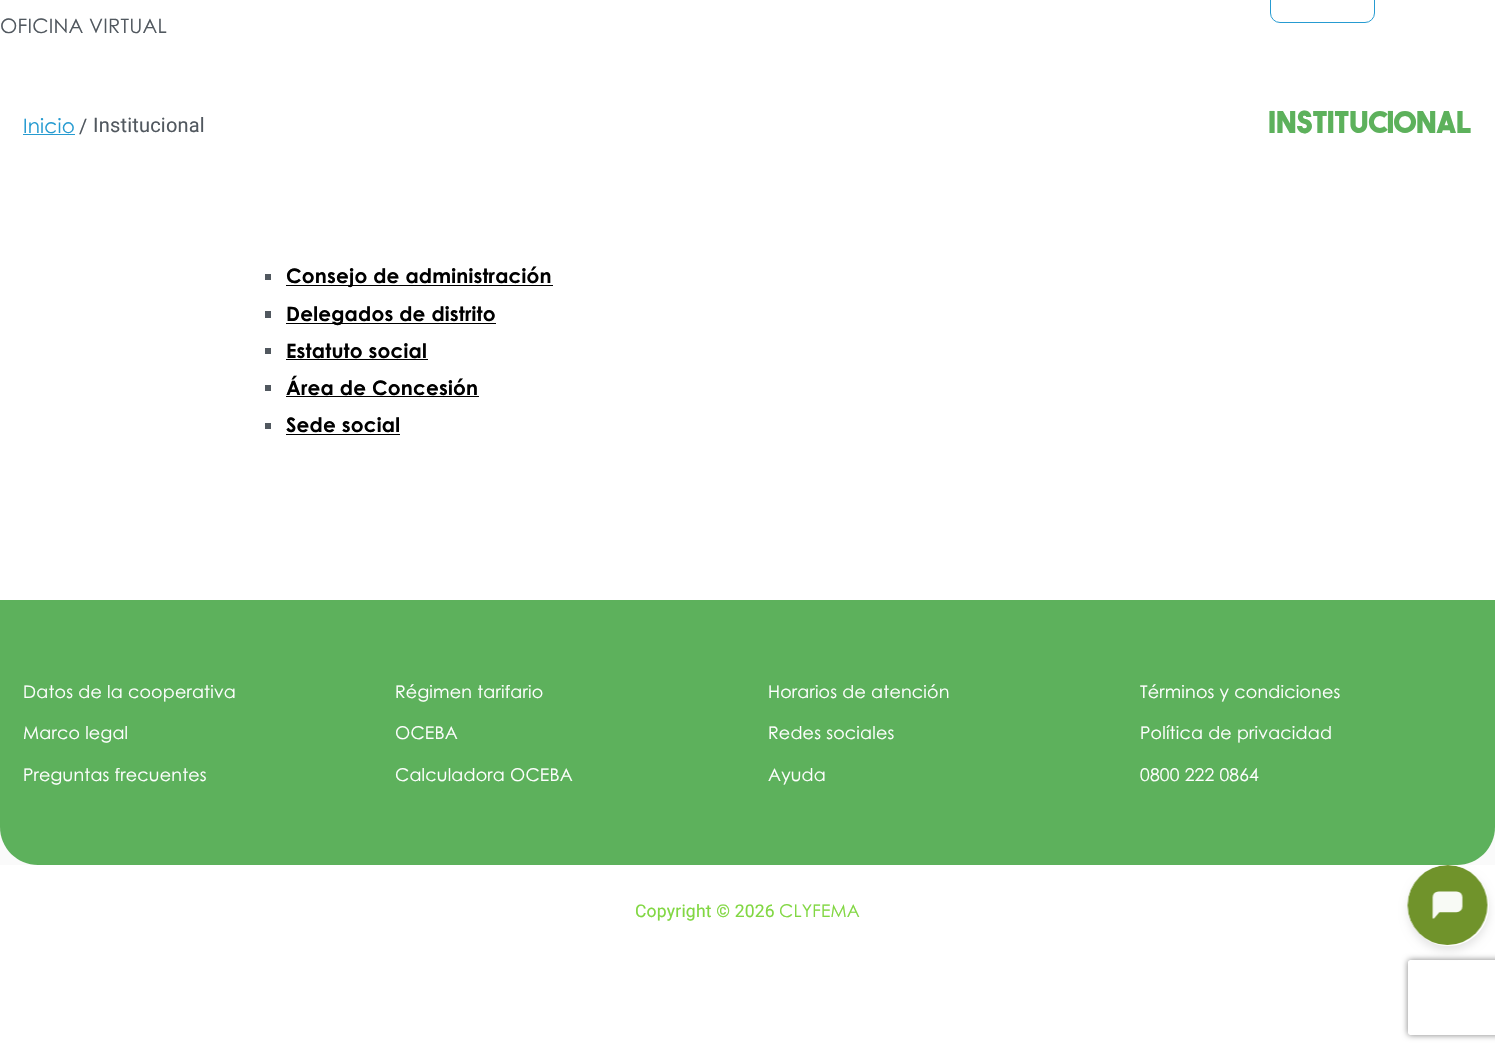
void draw(SkCanvas* canvas) {
  SkPaint paint;
  paint.setAntiAlias(true);
  auto face = [&](const char* family, int weight, float size, bool italic = false) {
    SkFontStyle style(weight, SkFontStyle::kNormal_Width,
      italic ? SkFontStyle::kItalic_Slant : SkFontStyle::kUpright_Slant);
    SkFont result(fontMgr->matchFamilyStyle(family, style), size);
    result.setSubpixel(true);
    return result;
  };
  auto writeSpaced = [&](const char* s, float x, float y, const SkFont& font, const SkPaint& ink, float letter, float word) {
    std::vector<SkGlyphID> glyphs(font.countText(s, strlen(s), SkTextEncoding::kUTF8));
    std::vector<float> xs(glyphs.size());
    font.textToGlyphs(s, strlen(s), SkTextEncoding::kUTF8, glyphs);
    font.getXPos(glyphs, xs, x);
    float extra = 0;
    for (size_t i = 0; i < glyphs.size(); i++) {
      xs[i] += extra;
      extra += letter + word * (glyphs[i] == font.unicharToGlyph(' '));
    }
    canvas->drawTextBlob(SkTextBlob::MakeFromPosHGlyphs(glyphs, xs, y, font), 0, 0, ink);
  };
  auto paste = [&](const char* path, float x, float y, float w, float h) {
    auto image = SkImages::DeferredFromEncodedData(SkData::MakeFromFileName(path));
    canvas->drawImageRect(image, SkRect::MakeXYWH(x, y, w, h), SkSamplingOptions());
  };
  auto shape = [&](const char* data, bool evenOdd = false) {
    SkPath result = *SkParsePath::FromSVGString(data);
    if (evenOdd) result.setFillType(SkPathFillType::kEvenOdd);
    return result;
  };
  canvas->clear(0xffffffff);
  paint.setColor(0xfffafafa);
  canvas->drawRect(SkRect::MakeXYWH(0, 827, 1495, 38), paint);
  paint.setStroke(true);
  paint.setStrokeWidth(1);
  paint.setColor(0xff269bd1);
  canvas->drawRoundRect(SkRect::MakeXYWH(1270.5f, -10.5f, 104, 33), 9.5f, 9.5f, paint);
  paint.setStroke(false);
  {
    const struct { float x, y, w, h; SkColor color; } items[] = {
      {23, 134, 52, 1, 0xff269bd1},
      {265, 274, 6, 6, 0xff51585f},
      {286, 285, 267, 1, 0xff000000},
      {265, 311, 6, 7, 0xff51585f},
      {286, 323, 210, 1, 0xff000000},
      {265, 348, 6, 6, 0xff51585f},
      {286, 359, 142, 1, 0xff000000},
      {265, 385, 6, 6, 0xff51585f},
      {286, 396, 193, 1, 0xff000000},
      {265, 423, 6, 6, 0xff51585f},
      {286, 434, 114, 1, 0xff000000},
    };
    for (auto [x, y, w, h, color] : items) {
      paint.setColor(color);
      canvas->drawRect(SkRect::MakeXYWH(x, y, w, h), paint);
    }
  }
  paint.setColor(0xff5db15c);
  canvas->drawPath(shape("M0 600H1495V827C1495 848 1478 865 1457 865H38C17 865 0 848 0 827Z"), paint);
  canvas->save();
  canvas->clipPath(shape("M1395 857H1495V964H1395ZM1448.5 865C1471 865 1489 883 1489 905.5C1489 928 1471 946 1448.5 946C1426 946 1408 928 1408 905.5C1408 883 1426 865 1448.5 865Z", true), true);
  paint.setColor(0x1a000000);
  paint.setMaskFilter(SkMaskFilter::MakeBlur(kNormal_SkBlurStyle, 4));
  canvas->drawRoundRect(SkRect::MakeXYWH(1408, 870, 81, 81), 40.5f, 40.5f, paint);
  paint.setMaskFilter(nullptr);
  canvas->restore();
  paste("img/1.png", 1407, 865, 81, 80);
  canvas->save();
  canvas->clipPath(shape("M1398 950H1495V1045H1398ZM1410.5 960H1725.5C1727 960 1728 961 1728 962.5V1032.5C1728 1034 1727 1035 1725.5 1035H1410.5C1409 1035 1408 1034 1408 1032.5V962.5C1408 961 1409 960 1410.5 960Z", true), true);
  paint.setColor(0xff808080);
  paint.setMaskFilter(SkMaskFilter::MakeBlur(kNormal_SkBlurStyle, 3));
  canvas->drawRoundRect(SkRect::MakeXYWH(1408, 960, 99, 75), 2.5f, 2.5f, paint);
  paint.setMaskFilter(nullptr);
  canvas->restore();
  auto f0 = face("Century Gothic", 400, 20);
  paint.setColor(0xff51585f);
  writeSpaced("OFICINA VIRTUAL", 0, 33, f0, paint, 0.2f, 0);
  paint.setColor(0xff269bd1);
  writeSpaced("Inicio", 23, 133, f0, paint, 0.2f, 0);
  auto f1 = face("Roboto", 400, 20);
  paint.setColor(0xff51585f);
  writeSpaced("/", 79, 133, f1, paint, 0.2f, 0);
  writeSpaced("Institucional", 93, 132, f1, paint, 0.2f, 0);
  auto f2 = face("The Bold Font", 700, 30);
  paint.setColor(0xff5db15c);
  writeSpaced("Institucional", 1268, 133, f2, paint, 0.2f, 0);
  auto f3 = face("Century Gothic", 700, 20);
  paint.setColor(0xff000000);
  {
    const struct { const char* s; float x, y; } items[] = {
      {"Consejo de administración", 286, 283},
      {"Delegados de distrito", 286, 321},
      {"Estatuto social", 286, 358},
      {"Área de Concesión", 286, 395},
      {"Sede social", 286, 432},
    };
    for (auto [s, x, y] : items) {
      writeSpaced(s, x, y, f3, paint, 0.2f, 0);
    }
  }
  auto f4 = face("Century Gothic", 400, 17.5f);
  paint.setColor(0xffffffff);
  {
    const struct { const char* s; float x, y; } items[] = {
      {"Datos de la cooperativa", 23, 698},
      {"Marco legal", 23, 739},
      {"Preguntas frecuentes", 23, 781},
      {"Régimen tarifario", 395, 698},
      {"OCEBA", 395, 739},
      {"Calculadora OCEBA", 395, 781},
      {"Horarios de atención", 768, 698},
      {"Redes sociales", 768, 739},
      {"Ayuda", 768, 781},
      {"Términos y condiciones", 1140, 698},
      {"Política de privacidad", 1140, 739},
      {"0800 222 0864", 1140, 781},
    };
    for (auto [s, x, y] : items) {
      writeSpaced(s, x, y, f4, paint, 0.2f, 0);
    }
  }
  auto f5 = face("Roboto", 400, 17.5f);
  paint.setColor(0xff81d742);
  writeSpaced("Copyright © 2026", 635, 917, f5, paint, 0.2f, 0);
  writeSpaced("CLYFEMA", 779, 917, f4, paint, 0.2f, 0);
}
